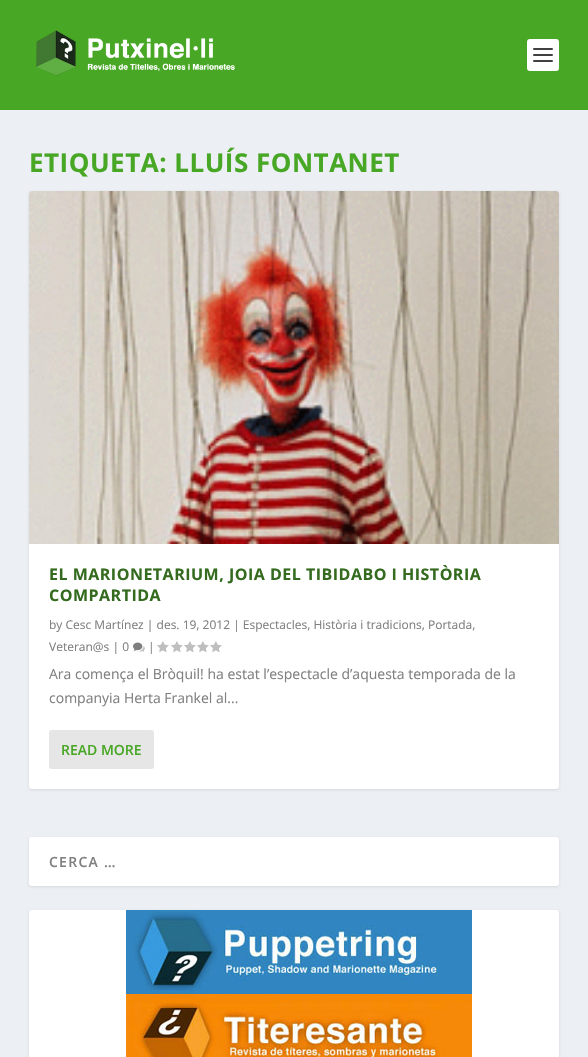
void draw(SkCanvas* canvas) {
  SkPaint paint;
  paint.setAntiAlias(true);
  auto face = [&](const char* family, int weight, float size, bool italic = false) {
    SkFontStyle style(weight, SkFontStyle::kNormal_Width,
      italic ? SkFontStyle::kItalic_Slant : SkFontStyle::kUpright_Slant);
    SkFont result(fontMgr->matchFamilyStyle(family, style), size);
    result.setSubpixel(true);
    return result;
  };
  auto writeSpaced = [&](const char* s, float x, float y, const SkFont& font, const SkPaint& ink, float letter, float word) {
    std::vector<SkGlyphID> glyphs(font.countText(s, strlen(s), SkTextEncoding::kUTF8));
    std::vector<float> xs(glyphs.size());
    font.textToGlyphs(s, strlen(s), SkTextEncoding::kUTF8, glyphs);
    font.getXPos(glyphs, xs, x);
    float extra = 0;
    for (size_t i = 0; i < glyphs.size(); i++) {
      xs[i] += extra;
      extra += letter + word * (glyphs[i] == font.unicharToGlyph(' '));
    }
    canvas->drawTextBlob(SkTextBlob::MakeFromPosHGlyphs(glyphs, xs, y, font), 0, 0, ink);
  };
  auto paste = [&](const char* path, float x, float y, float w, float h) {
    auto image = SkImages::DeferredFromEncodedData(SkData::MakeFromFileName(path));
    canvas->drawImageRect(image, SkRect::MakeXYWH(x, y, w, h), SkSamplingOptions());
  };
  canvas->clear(0xffecf0f5);
  paint.setColor(0xff48a725);
  canvas->drawRect(SkRect::MakeXYWH(0, 0, 588, 110), paint);
  paste("img/1.png", 36, 30, 199, 46);
  paint.setColor(0xffffffff);
  canvas->drawRoundRect(SkRect::MakeXYWH(527, 39, 32, 32), 3, 3, paint);
  paint.setColor(0xff404040);
  canvas->drawRoundRect(SkRect::MakeXYWH(533, 48, 20, 2), 1, 1, paint);
  canvas->drawRoundRect(SkRect::MakeXYWH(533, 54, 20, 2), 1, 1, paint);
  canvas->drawRoundRect(SkRect::MakeXYWH(533, 60, 20, 2), 1, 1, paint);
  paint.setColor(0x1a000000);
  paint.setMaskFilter(SkMaskFilter::MakeBlur(kNormal_SkBlurStyle, 1.5f));
  canvas->drawRoundRect(SkRect::MakeXYWH(29, 192, 530, 598), 3, 3, paint);
  paint.setMaskFilter(nullptr);
  paint.setColor(0xffffffff);
  canvas->drawRoundRect(SkRect::MakeXYWH(29, 191, 530, 598), 3, 3, paint);
  paste("img/2.png", 29, 191, 530, 353);
  paste("img/3.png", 133, 642, 12, 10);
  paste("img/4.png", 157, 641, 12, 12);
  paste("img/4.png", 171, 641, 12, 12);
  paste("img/4.png", 184, 641, 12, 12);
  paste("img/4.png", 197, 641, 12, 12);
  paste("img/4.png", 210, 641, 12, 12);
  paint.setColor(0xffe6e6e6);
  canvas->drawRoundRect(SkRect::MakeXYWH(49, 730, 105, 39), 3, 3, paint);
  paint.setColor(0x1a000000);
  paint.setMaskFilter(SkMaskFilter::MakeBlur(kNormal_SkBlurStyle, 1.5f));
  canvas->drawRoundRect(SkRect::MakeXYWH(29, 838, 530, 49), 3, 3, paint);
  paint.setMaskFilter(nullptr);
  paint.setColor(0xffffffff);
  canvas->drawRoundRect(SkRect::MakeXYWH(29, 837, 530, 49), 3, 3, paint);
  paint.setColor(0x1a000000);
  paint.setMaskFilter(SkMaskFilter::MakeBlur(kNormal_SkBlurStyle, 1.5f));
  canvas->drawRoundRect(SkRect::MakeXYWH(29, 911, 530, 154), 3, 3, paint);
  paint.setMaskFilter(nullptr);
  paint.setColor(0xffffffff);
  canvas->drawRoundRect(SkRect::MakeXYWH(29, 910, 530, 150), 3, 3, paint);
  paste("img/5.png", 126, 910, 346, 84);
  paste("img/6.png", 126, 994, 346, 63);
  auto f0 = face("Open Sans", 700, 26);
  paint.setColor(0xff48a725);
  writeSpaced("ETIQUETA: LLUÍS FONTANET", 29, 172, f0, paint, 0.5f, 0);
  auto f1 = face("Open Sans", 700, 16);
  paint.setColor(0xff346b1f);
  writeSpaced("EL MARIONETARIUM, JOIA DEL TIBIDABO I HISTÒRIA", 49, 580, f1, paint, 0.5f, 0);
  writeSpaced("COMPARTIDA", 49, 601, f1, paint, 0.5f, 0);
  auto f2 = face("Open Sans", 400, 12);
  paint.setColor(0xff808080);
  {
    const struct { const char* s; float x, y; } items[] = {
      {"by Cesc Martínez | des. 19, 2012 | Espectacles, Història i tradicions, Portada,", 49, 629},
      {"Veteran@s | 0", 49, 651},
      {"|", 148, 651},
    };
    for (auto [s, x, y] : items) {
      canvas->drawString(s, x, y, f2, paint);
    }
  }
  auto f3 = face("Open Sans", 400, 14);
  canvas->drawString("Ara comença el Bròquil! ha estat l’espectacle d’aquesta temporada de la", 49, 679, f3, paint);
  canvas->drawString("companyia Herta Frankel al...", 49, 703, f3, paint);
  auto f4 = face("Open Sans", 600, 14);
  paint.setColor(0xff48a725);
  canvas->drawString("READ MORE", 61, 755, f4, paint);
  paint.setColor(0xff808080);
  writeSpaced("CERCA …", 49, 867, f4, paint, 1.25f, 0);
}
